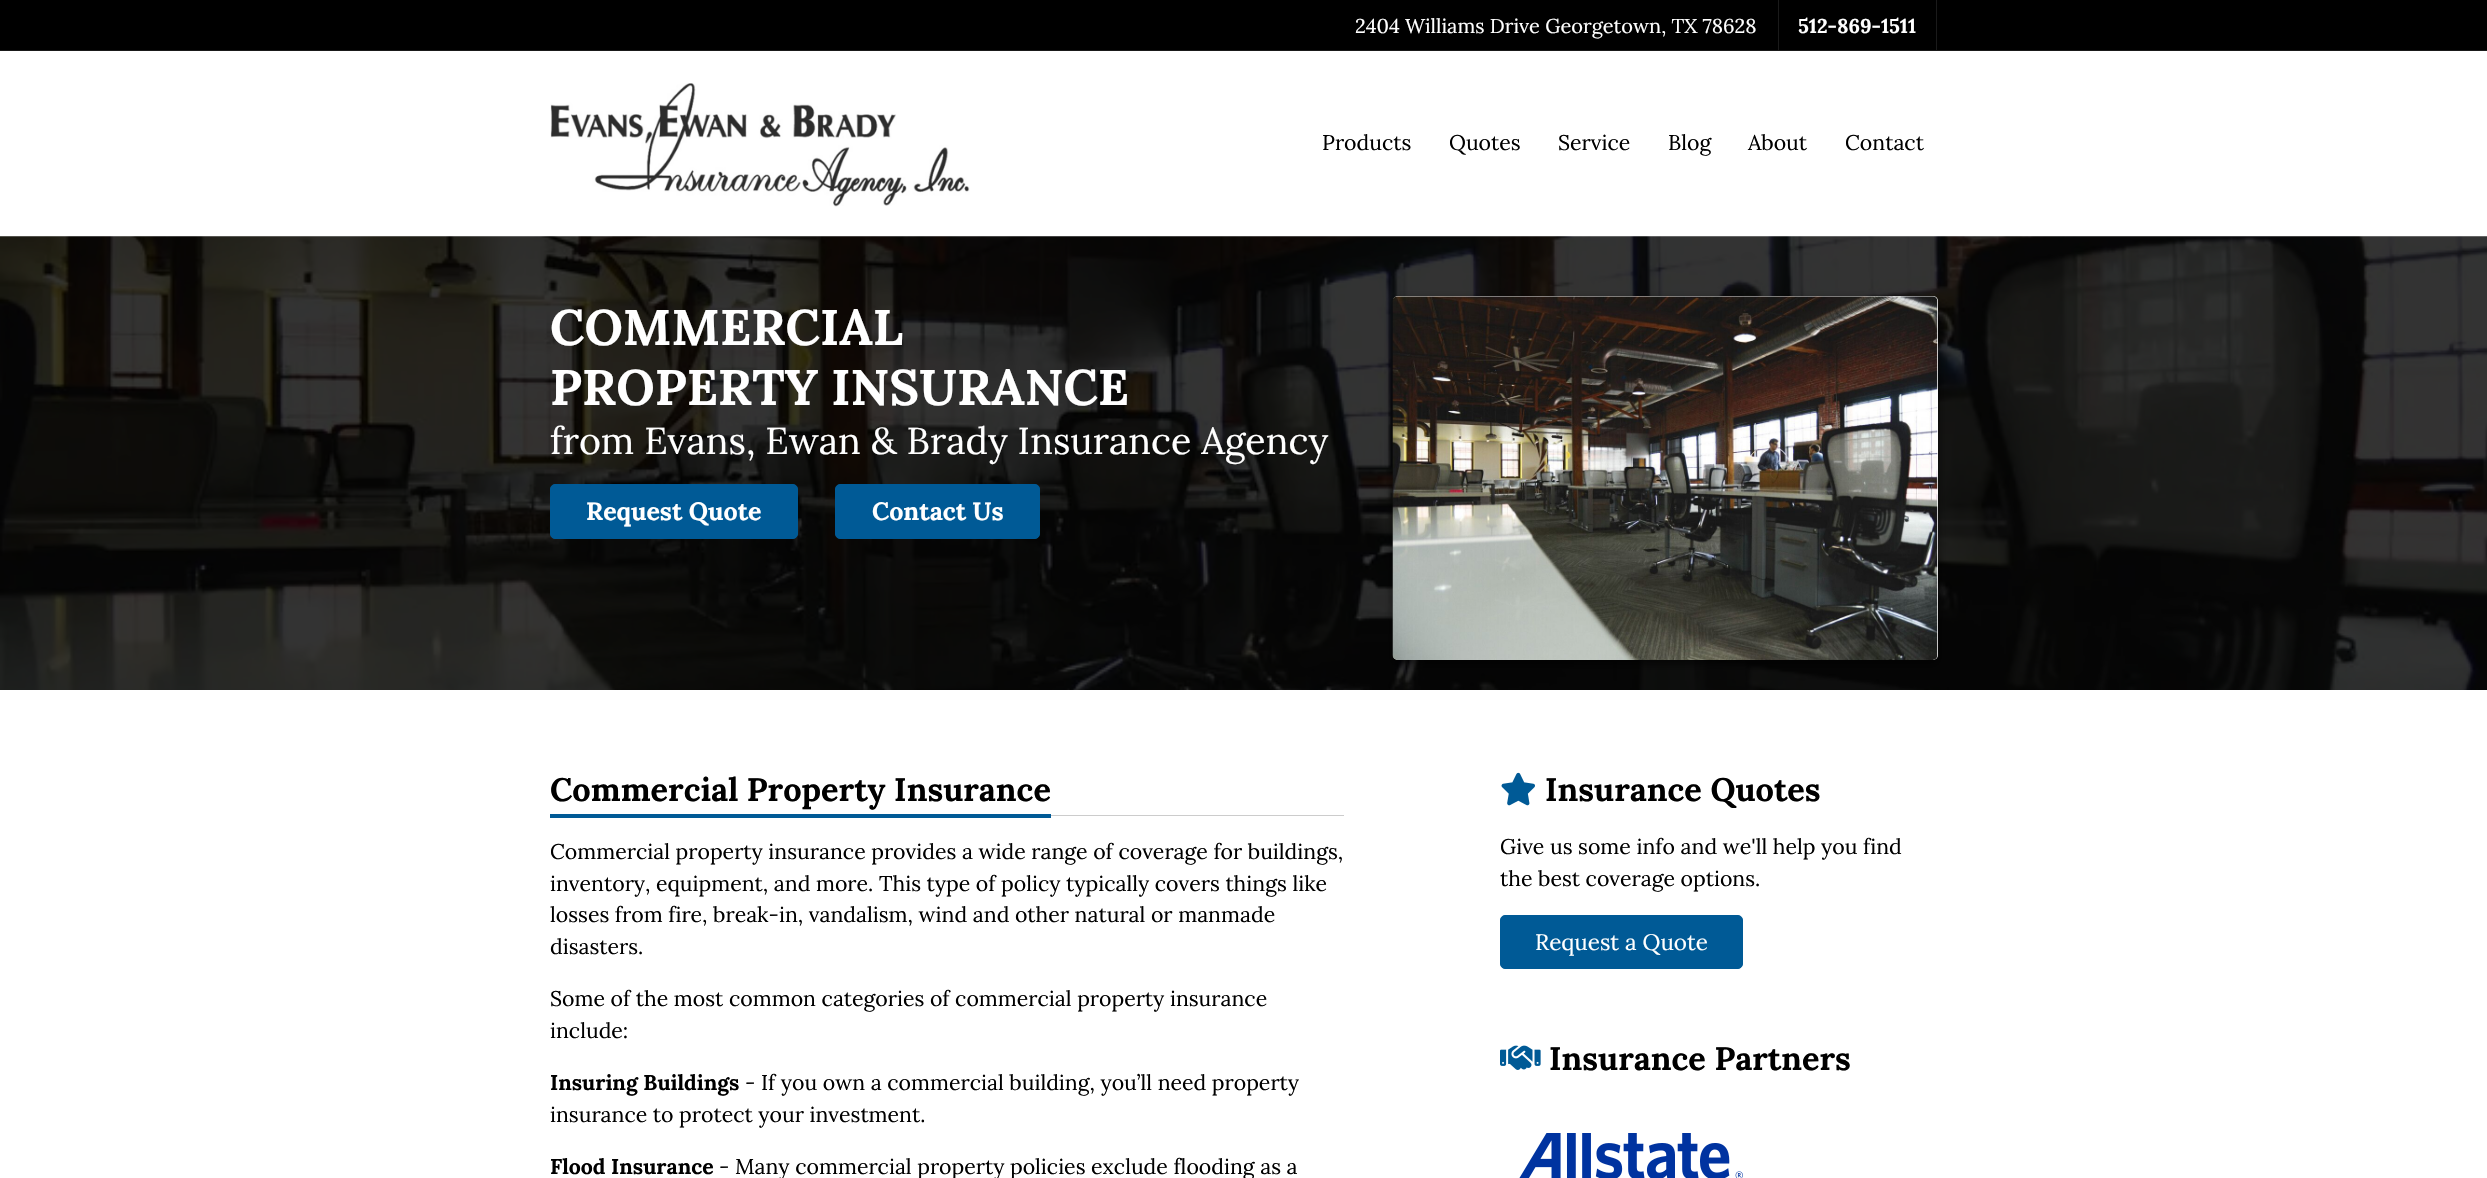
void draw(SkCanvas* canvas) {
  SkPaint paint;
  paint.setAntiAlias(true);
  auto face = [&](const char* family, int weight, float size, bool italic = false) {
    SkFontStyle style(weight, SkFontStyle::kNormal_Width,
      italic ? SkFontStyle::kItalic_Slant : SkFontStyle::kUpright_Slant);
    SkFont result(fontMgr->matchFamilyStyle(family, style), size);
    result.setSubpixel(true);
    return result;
  };
  auto paste = [&](const char* path, float x, float y, float w, float h) {
    auto image = SkImages::DeferredFromEncodedData(SkData::MakeFromFileName(path));
    canvas->drawImageRect(image, SkRect::MakeXYWH(x, y, w, h), SkSamplingOptions());
  };
  canvas->clear(0xffffffff);
  {
    const struct { float x, y, w, h; SkColor color; } items[] = {
      {0, 0, 2487, 50, 0xff000000},
      {0, 50, 2487, 1, 0xff1a1a1a},
      {1936, 0, 1, 50, 0xff1a1a1a},
      {1778, 0, 1, 50, 0xff1a1a1a},
    };
    for (auto [x, y, w, h, color] : items) {
      paint.setColor(color);
      canvas->drawRect(SkRect::MakeXYWH(x, y, w, h), paint);
    }
  }
  paste("img/1.png", 550, 83, 420, 124);
  paste("img/2.png", 0, 236, 2487, 454);
  paint.setColor(0xff005a96);
  canvas->drawRoundRect(SkRect::MakeXYWH(550.5f, 484.5f, 247, 54), 4.5f, 4.5f, paint);
  paint.setStroke(true);
  paint.setStrokeWidth(1);
  canvas->drawRoundRect(SkRect::MakeXYWH(550.5f, 484.5f, 247, 54), 4.5f, 4.5f, paint);
  paint.setStroke(false);
  canvas->drawRoundRect(SkRect::MakeXYWH(835.5f, 484.5f, 204, 54), 4.5f, 4.5f, paint);
  paint.setStroke(true);
  canvas->drawRoundRect(SkRect::MakeXYWH(835.5f, 484.5f, 204, 54), 4.5f, 4.5f, paint);
  paint.setStroke(false);
  paint.setColor(0x99000000);
  paint.setMaskFilter(SkMaskFilter::MakeBlur(kNormal_SkBlurStyle, 4));
  canvas->drawRoundRect(SkRect::MakeXYWH(1393, 300, 545, 364), 5, 5, paint);
  paint.setMaskFilter(nullptr);
  paint.setColor(0xffffffff);
  canvas->drawRoundRect(SkRect::MakeXYWH(1393, 296, 545, 364), 5, 5, paint);
  paste("img/3.png", 1392, 296, 546, 364);
  paint.setColor(0xffcccccc);
  canvas->drawRect(SkRect::MakeXYWH(1051, 815, 293, 1), paint);
  paint.setColor(0xff005a96);
  canvas->drawRect(SkRect::MakeXYWH(550, 814, 501, 4), paint);
  paste("img/4.png", 1501, 772, 34, 34);
  canvas->drawRoundRect(SkRect::MakeXYWH(1500.5f, 915.5f, 242, 53), 4.5f, 4.5f, paint);
  paint.setStroke(true);
  canvas->drawRoundRect(SkRect::MakeXYWH(1500.5f, 915.5f, 242, 53), 4.5f, 4.5f, paint);
  paste("img/5.png", 1500, 1045, 41, 25);
  paste("img/6.png", 1519, 1133, 224, 45);
  auto f0 = face("Lora", 400, 20);
  paint.setStroke(false);
  paint.setColor(0xffffffff);
  canvas->drawString("2404 Williams Drive Georgetown, TX 78628", 1355, 33, f0, paint);
  auto f1 = face("Lora", 700, 20);
  canvas->drawString("512-869-1511", 1798, 33, f1, paint);
  auto f2 = face("Lora", 400, 21.25f);
  paint.setColor(0xff000000);
  {
    const struct { const char* s; float x, y; } items[] = {
      {"Products", 1322, 150},
      {"Quotes", 1449, 150},
      {"Service", 1558, 150},
      {"Blog", 1668, 150},
      {"About", 1748, 150},
      {"Contact", 1845, 150},
    };
    for (auto [s, x, y] : items) {
      canvas->drawString(s, x, y, f2, paint);
    }
  }
  auto f3 = face("Lora", 700, 50);
  paint.setColor(0xffffffff);
  canvas->drawString("COMMERCIAL", 550, 345, f3, paint);
  canvas->drawString("PROPERTY INSURANCE", 550, 405, f3, paint);
  auto f4 = face("Lora", 400, 37.5f);
  canvas->drawString("from Evans, Ewan & Brady Insurance Agency", 550, 454, f4, paint);
  auto f5 = face("Lora", 700, 25);
  canvas->drawString("Request Quote", 586, 520, f5, paint);
  canvas->drawString("Contact Us", 872, 520, f5, paint);
  auto f6 = face("Lora", 700, 32.5f);
  paint.setColor(0xff000000);
  canvas->drawString("Commercial Property Insurance", 550, 801, f6, paint);
  {
    const struct { const char* s; float x, y; } items[] = {
      {"Commercial property insurance provides a wide range of coverage for buildings,", 550, 859},
      {"inventory, equipment, and more. This type of policy typically covers things like", 550, 891},
      {"losses from fire, break-in, vandalism, wind and other natural or manmade", 550, 922},
      {"disasters.", 550, 954},
      {"Some of the most common categories of commercial property insurance", 550, 1006},
      {"include:", 550, 1038},
    };
    for (auto [s, x, y] : items) {
      canvas->drawString(s, x, y, f2, paint);
    }
  }
  auto f7 = face("Lora", 700, 21.25f);
  canvas->drawString("Insuring Buildings", 550, 1090, f7, paint);
  canvas->drawString("- If you own a commercial building, you’ll need property", 745, 1090, f2, paint);
  canvas->drawString("insurance to protect your investment.", 550, 1122, f2, paint);
  canvas->drawString("Flood Insurance", 550, 1174, f7, paint);
  canvas->drawString("- Many commercial property policies exclude flooding as a", 719, 1174, f2, paint);
  canvas->drawString("Insurance Quotes", 1545, 801, f6, paint);
  canvas->drawString("Give us some info and we'll help you find", 1500, 854, f2, paint);
  canvas->drawString("the best coverage options.", 1500, 886, f2, paint);
  auto f8 = face("Lora", 400, 22.5f);
  paint.setColor(0xffffffff);
  canvas->drawString("Request a Quote", 1535, 950, f8, paint);
  paint.setColor(0xff000000);
  canvas->drawString("Insurance Partners", 1549, 1070, f6, paint);
}
